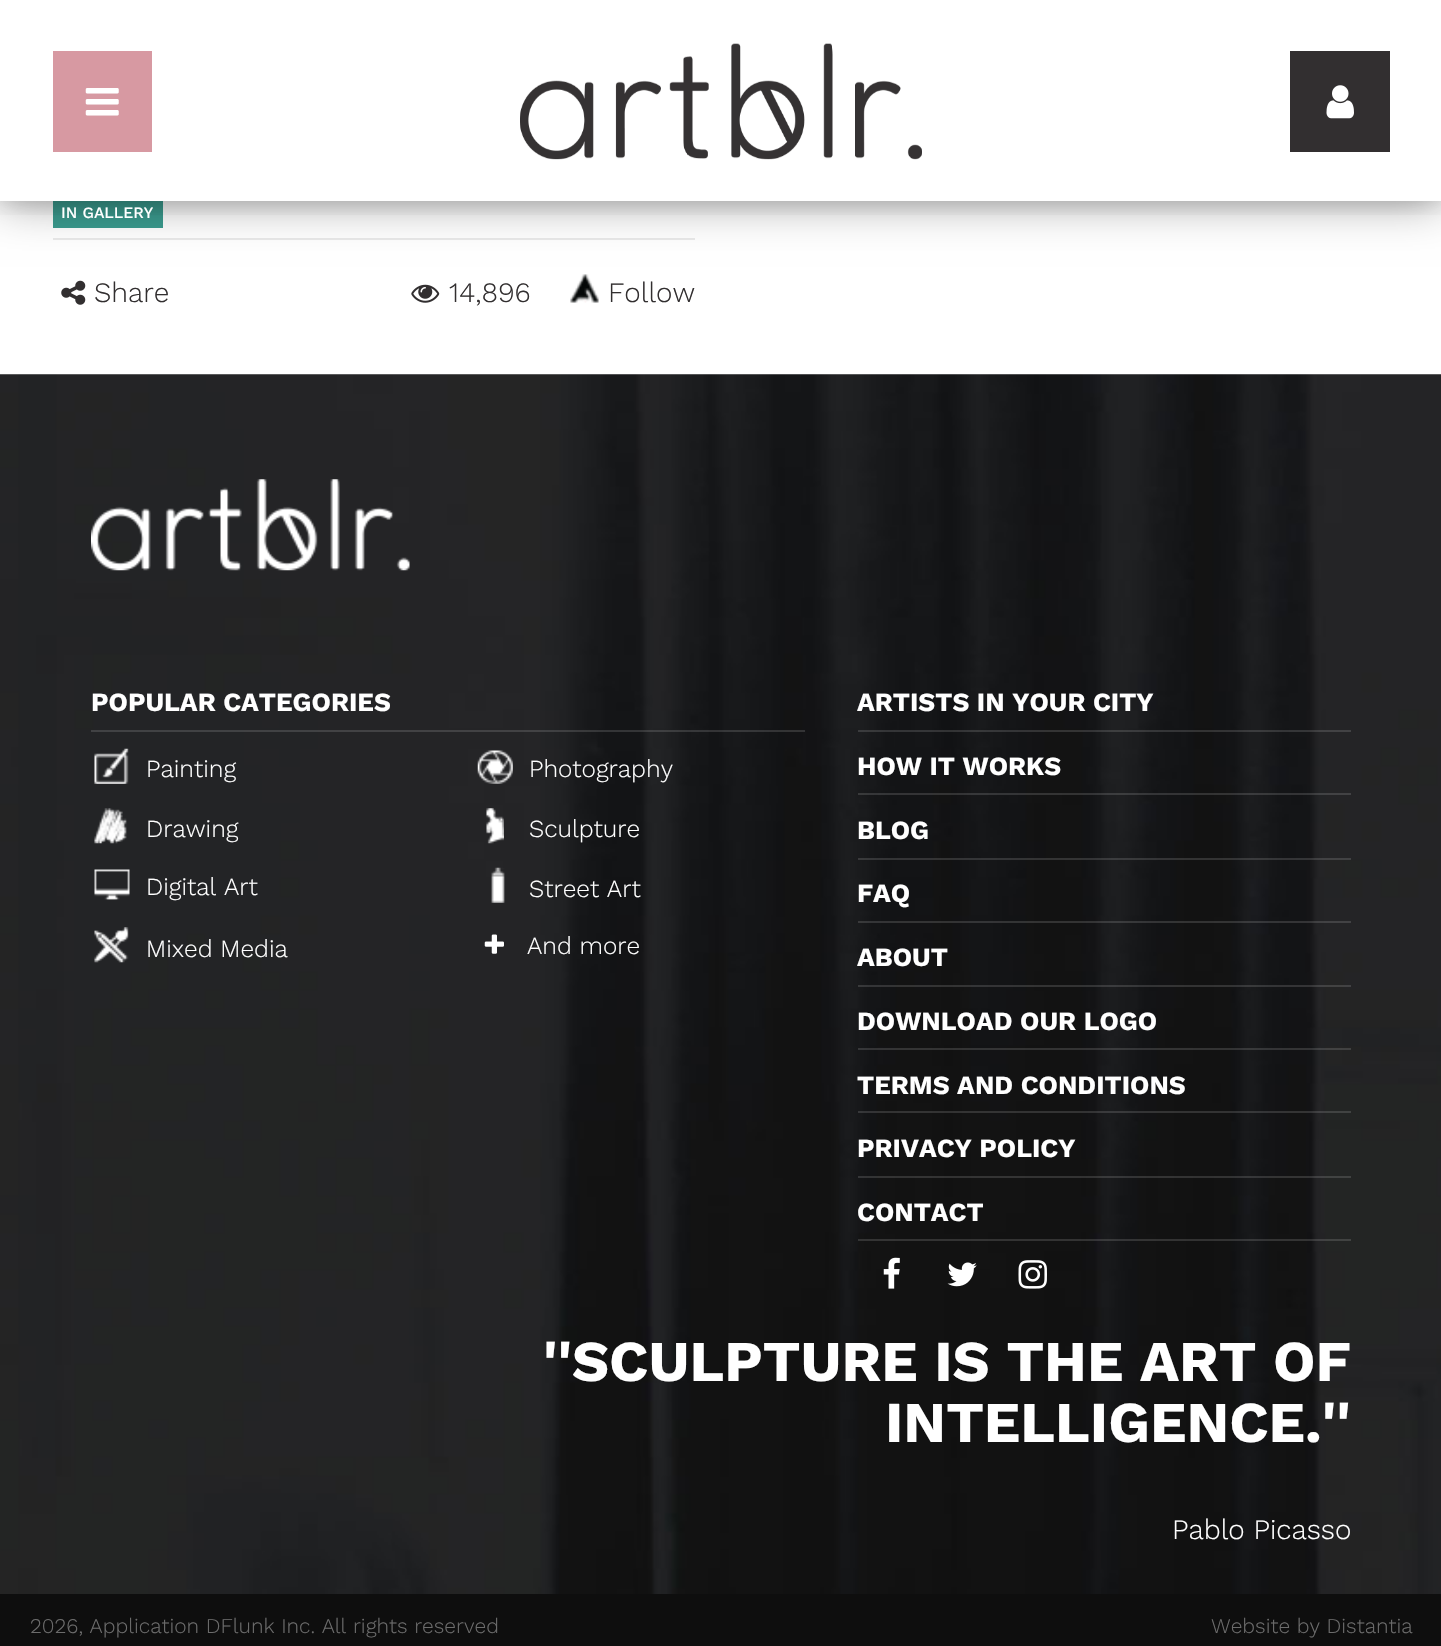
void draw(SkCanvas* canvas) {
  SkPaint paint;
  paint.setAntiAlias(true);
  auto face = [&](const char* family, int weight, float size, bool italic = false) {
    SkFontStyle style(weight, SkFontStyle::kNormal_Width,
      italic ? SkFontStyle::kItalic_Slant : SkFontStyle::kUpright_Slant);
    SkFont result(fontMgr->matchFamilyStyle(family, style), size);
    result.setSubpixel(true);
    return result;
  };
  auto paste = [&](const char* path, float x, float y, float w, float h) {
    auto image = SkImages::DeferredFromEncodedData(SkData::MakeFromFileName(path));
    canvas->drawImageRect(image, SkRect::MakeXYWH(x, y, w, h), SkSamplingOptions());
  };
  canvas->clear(0xffffffff);
  paint.setColor(0xffeaeaea);
  canvas->drawRect(SkRect::MakeXYWH(53, 238, 642, 2), paint);
  paint.setColor(0xff3a9b8e);
  canvas->drawRect(SkRect::MakeXYWH(53, 201, 110, 27), paint);
  paint.setColor(0x6b000000);
  paint.setMaskFilter(SkMaskFilter::MakeBlur(kNormal_SkBlurStyle, 22));
  canvas->drawRect(SkRect::MakeXYWH(0, 0, 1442, 201), paint);
  paint.setMaskFilter(nullptr);
  paint.setColor(0xffffffff);
  canvas->drawRect(SkRect::MakeXYWH(0, 0, 1441, 201), paint);
  canvas->save();
  canvas->clipRect(SkRect::MakeXYWH(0, 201, 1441, 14));
  paint.setColor(0x26000000);
  paint.setMaskFilter(SkMaskFilter::MakeBlur(kNormal_SkBlurStyle, 13));
  canvas->drawRect(SkRect::MakeXYWH(0, 0, 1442, 201), paint);
  paint.setMaskFilter(nullptr);
  canvas->restore();
  paint.setColor(0xffd799a2);
  canvas->drawRect(SkRect::MakeXYWH(53, 51, 99, 101), paint);
  paste("img/1.png", 85, 88, 34, 28);
  paste("img/2.png", 520, 43, 402, 117);
  paint.setColor(0xff322f30);
  canvas->drawRect(SkRect::MakeXYWH(1290, 51, 100, 101), paint);
  paste("img/3.png", 1326, 85, 28, 34);
  paste("img/4.png", 61, 280, 25, 25);
  paste("img/5.png", 411, 284, 29, 19);
  paste("img/6.png", 570, 274, 29, 29);
  paste("img/7.png", 0, 374, 1441, 1220);
  paste("img/8.png", 91, 479, 319, 92);
  paint.setColor(0x26eaeaea);
  canvas->drawRect(SkRect::MakeXYWH(91, 730, 714, 2), paint);
  paste("img/9.png", 94, 748, 35, 36);
  paste("img/10.png", 477, 750, 36, 34);
  paste("img/11.png", 94, 808, 33, 36);
  paste("img/12.png", 486, 808, 18, 36);
  paste("img/13.png", 94, 869, 36, 31);
  paste("img/14.png", 491, 867, 14, 36);
  paste("img/15.png", 94, 927, 35, 36);
  paste("img/16.png", 484, 934, 20, 20);
  {
    const struct { float x, y, w, h; SkColor color; } items[] = {
      {858, 730, 493, 2, 0x26eaeaea},
      {858, 793, 493, 2, 0x26eaeaea},
      {858, 858, 493, 2, 0x26eaeaea},
      {858, 921, 493, 2, 0x26eaeaea},
      {858, 985, 493, 2, 0x26eaeaea},
      {858, 1048, 493, 2, 0x26eaeaea},
      {858, 1111, 493, 2, 0x26eaeaea},
      {858, 1176, 493, 2, 0x26eaeaea},
      {858, 1239, 493, 2, 0x26eaeaea},
    };
    for (auto [x, y, w, h, color] : items) {
      paint.setColor(color);
      canvas->drawRect(SkRect::MakeXYWH(x, y, w, h), paint);
    }
  }
  paste("img/17.png", 883, 1257, 17, 32);
  paste("img/18.png", 947, 1262, 30, 25);
  paste("img/19.png", 1018, 1260, 29, 29);
  paint.setColor(0xff0e0e0e);
  canvas->drawRect(SkRect::MakeXYWH(0, 1594, 1441, 52), paint);
  auto f0 = face("Work Sans", 500, 15.75f);
  paint.setColor(0xffffffff);
  canvas->drawString("IN GALLERY", 61, 218, f0, paint);
  auto f1 = face("Work Sans", 300, 28);
  paint.setColor(0xff322f30);
  {
    const struct { const char* s; float x, y; } items[] = {
      {"Share", 94, 302},
      {"14,896", 449, 302},
      {"Follow", 608, 302},
    };
    for (auto [s, x, y] : items) {
      canvas->drawString(s, x, y, f1, paint);
    }
  }
  auto f2 = face("Work Sans", 700, 26.25f);
  paint.setColor(0xffffffff);
  canvas->drawString("POPULAR CATEGORIES", 91, 711, f2, paint);
  auto f3 = face("Work Sans", 300, 24.5f);
  {
    const struct { const char* s; float x, y; } items[] = {
      {"Painting", 146, 777},
      {"Photography", 529, 777},
      {"Drawing", 146, 837},
      {"Sculpture", 529, 837},
      {"Digital Art", 146, 895},
      {"Street Art", 529, 897},
      {"Mixed Media", 146, 957},
      {"And more", 527, 954},
    };
    for (auto [s, x, y] : items) {
      canvas->drawString(s, x, y, f3, paint);
    }
  }
  {
    const struct { const char* s; float x, y; } items[] = {
      {"ARTISTS IN YOUR CITY", 857, 711},
      {"HOW IT WORKS", 857, 775},
      {"BLOG", 857, 839},
      {"FAQ", 857, 902},
      {"ABOUT", 857, 966},
      {"DOWNLOAD OUR LOGO", 857, 1030},
      {"TERMS AND CONDITIONS", 857, 1094},
      {"PRIVACY POLICY", 857, 1157},
      {"CONTACT", 857, 1221},
    };
    for (auto [s, x, y] : items) {
      canvas->drawString(s, x, y, f2, paint);
    }
  }
  auto f4 = face("Work Sans", 700, 57.75f);
  canvas->drawString("''SCULPTURE IS THE ART OF", 543, 1381, f4, paint);
  canvas->drawString("INTELLIGENCE.''", 885, 1442, f4, paint);
  canvas->drawString("Pablo Picasso", 1172, 1539, f1, paint);
  auto f5 = face("Work Sans", 300, 21);
  paint.setColor(0xff6c6c6c);
  canvas->drawString("2026, Application DFlunk Inc. All rights reserved", 30, 1633, f5, paint);
  canvas->drawString("Website by Distantia", 1211, 1633, f5, paint);
}
